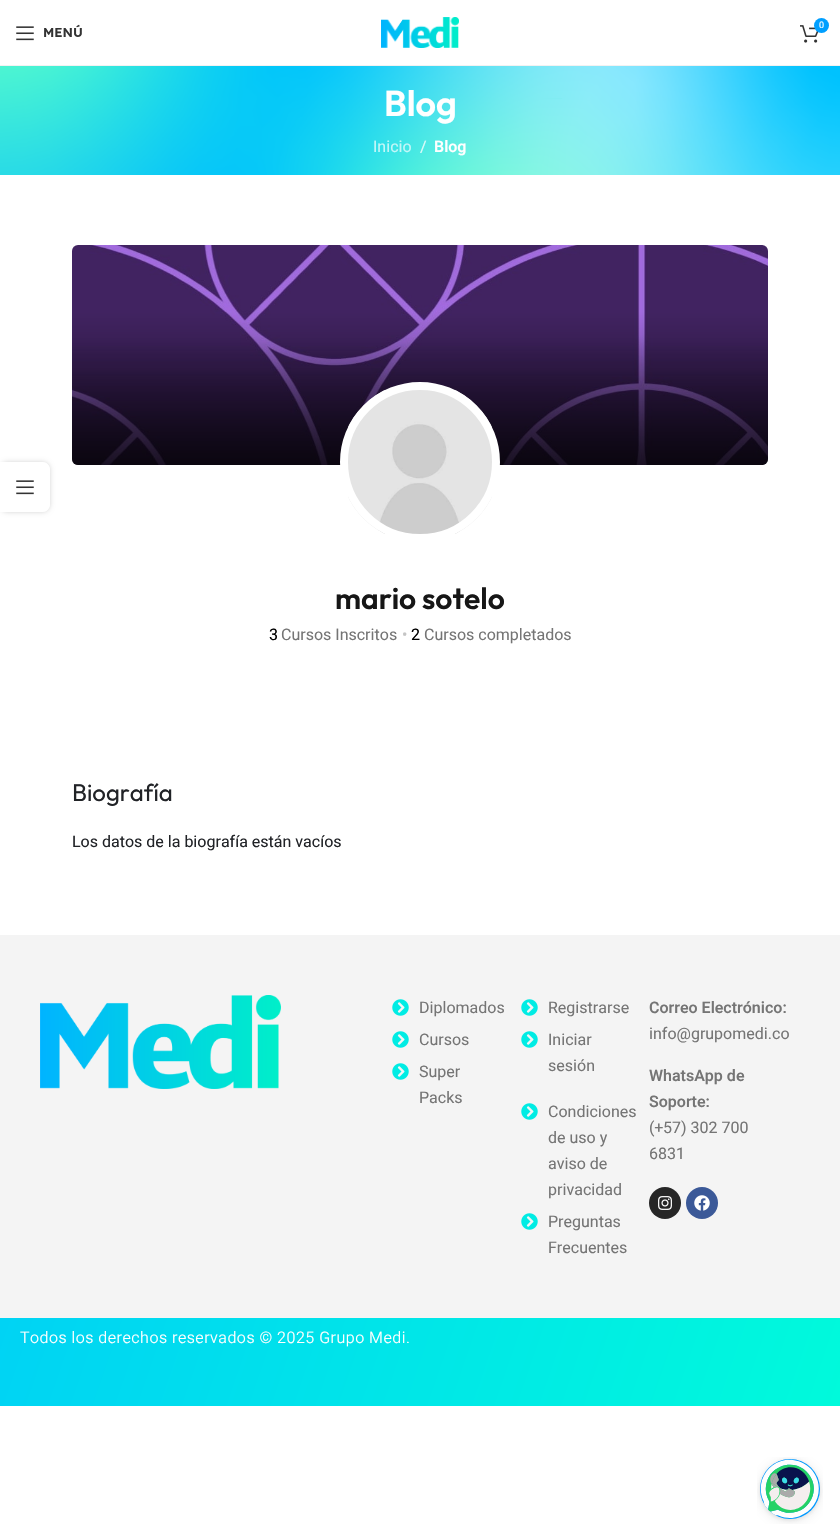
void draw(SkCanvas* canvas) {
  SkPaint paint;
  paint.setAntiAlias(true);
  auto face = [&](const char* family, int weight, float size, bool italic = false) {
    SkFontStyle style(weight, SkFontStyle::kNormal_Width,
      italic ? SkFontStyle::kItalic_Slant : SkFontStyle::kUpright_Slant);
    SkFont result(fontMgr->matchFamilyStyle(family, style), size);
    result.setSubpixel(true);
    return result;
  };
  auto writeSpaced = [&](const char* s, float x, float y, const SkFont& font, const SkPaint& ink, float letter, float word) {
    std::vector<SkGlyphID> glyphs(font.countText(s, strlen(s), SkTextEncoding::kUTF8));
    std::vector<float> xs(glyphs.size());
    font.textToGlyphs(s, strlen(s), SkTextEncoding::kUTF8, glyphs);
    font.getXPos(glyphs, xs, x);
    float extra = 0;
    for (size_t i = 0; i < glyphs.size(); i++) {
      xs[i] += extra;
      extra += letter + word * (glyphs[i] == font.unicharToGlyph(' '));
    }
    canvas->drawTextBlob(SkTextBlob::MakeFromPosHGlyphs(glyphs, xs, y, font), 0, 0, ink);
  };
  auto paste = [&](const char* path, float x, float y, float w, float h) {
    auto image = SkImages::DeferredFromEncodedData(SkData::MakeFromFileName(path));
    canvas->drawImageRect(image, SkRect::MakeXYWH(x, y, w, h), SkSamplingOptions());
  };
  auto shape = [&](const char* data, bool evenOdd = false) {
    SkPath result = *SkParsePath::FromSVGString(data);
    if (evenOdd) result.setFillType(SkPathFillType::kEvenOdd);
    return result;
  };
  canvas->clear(0xffffffff);
  paint.setColor(0xfff2f2f2);
  canvas->drawRect(SkRect::MakeXYWH(0, 65, 840, 1), paint);
  paste("img/1.png", 16, 26, 18, 15);
  paste("img/2.png", 381, 17, 78, 31);
  paste("img/3.png", 800, 25, 19, 18);
  paint.setColor(0xff009fff);
  canvas->drawCircle(821.5f, 25.5f, 7.5f, paint);
  paste("img/4.png", 0, 66, 840, 109);
  paste("img/5.png", 72, 245, 696, 220);
  {
    const SkColor colors[] = {0x00000000, 0x99000000};
    const float stops[] = {0, 1};
    const SkPoint ends[] = {{420, 311}, {420, 465}};
    paint.setShader(SkGradientShader::MakeLinear(ends, colors, stops, 2, SkTileMode::kClamp));
    paint.setAlpha(255);
  }
  canvas->drawPath(shape("M72 311H768V459C768 462.5 765.5 465 762 465H78C74.5 465 72 462.5 72 459Z"), paint);
  paste("img/6.png", 348, 390, 144, 144);
  paint.setStroke(true);
  paint.setStrokeWidth(8);
  paint.setShader(nullptr);
  paint.setColor(0xffffffff);
  canvas->drawCircle(420, 462, 76, paint);
  paint.setStroke(false);
  paint.setColor(0xfff4f4f4);
  canvas->drawRect(SkRect::MakeXYWH(0, 935, 840, 383), paint);
  paste("img/7.png", 40, 995, 241, 94);
  paste("img/8.png", 392, 999, 17, 17);
  paste("img/8.png", 392, 1031, 17, 17);
  paste("img/8.png", 392, 1063, 17, 17);
  paste("img/8.png", 521, 999, 17, 17);
  paste("img/8.png", 521, 1031, 17, 17);
  paste("img/8.png", 521, 1103, 17, 17);
  paste("img/8.png", 521, 1213, 17, 17);
  paint.setColor(0xff262626);
  canvas->drawCircle(665, 1203, 16, paint);
  paste("img/9.png", 658, 1196, 14, 14);
  paint.setColor(0xff3b5998);
  canvas->drawCircle(702, 1203, 16, paint);
  paste("img/10.png", 694, 1195, 16, 16);
  {
    const SkColor colors[] = {0xff00d3f4, 0xff00fadb};
    const float stops[] = {0, 1};
    const SkPoint ends[] = {{31, 1228}, {809, 1496}};
    paint.setShader(SkGradientShader::MakeLinear(ends, colors, stops, 2, SkTileMode::kClamp));
    paint.setAlpha(255);
  }
  canvas->drawRect(SkRect::MakeXYWH(0, 1318, 840, 88), paint);
  canvas->save();
  canvas->clipPath(shape("M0 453H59V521H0ZM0 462H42C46.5 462 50 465.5 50 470V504C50 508.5 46.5 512 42 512H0Z", true), true);
  paint.setShader(nullptr);
  paint.setColor(0x2b000000);
  paint.setMaskFilter(SkMaskFilter::MakeBlur(kNormal_SkBlurStyle, 2.5f));
  canvas->drawRoundRect(SkRect::MakeXYWH(0, 462, 50, 50), 8, 8, paint);
  paint.setMaskFilter(nullptr);
  canvas->restore();
  paint.setColor(0xe6ffffff);
  canvas->drawPath(shape("M0 462H42C46.5 462 50 465.5 50 470V504C50 508.5 46.5 512 42 512H0Z"), paint);
  paste("img/1.png", 16, 480, 18, 15);
  paste("img/11.png", 757, 1457, 66, 67);
  auto f0 = face("Lexend", 600, 13);
  paint.setColor(0xff333333);
  canvas->drawString("MENÚ", 43, 37, f0, paint);
  auto f1 = face("Heebo", 400, 9);
  paint.setColor(0xffffffff);
  canvas->drawString("0", 819, 28, f1, paint);
  auto f2 = face("Outfit", 600, 36);
  canvas->drawString("Blog", 384, 116, f2, paint);
  auto f3 = face("Heebo", 400, 16);
  paint.setColor(0xffc4f7f8);
  canvas->drawString("Inicio", 373, 152, f3, paint);
  paint.setColor(0xffdbfbf9);
  canvas->drawString("/", 420, 152, f3, paint);
  auto f4 = face("Heebo", 600, 16);
  paint.setColor(0xffffffff);
  canvas->drawString("Blog", 434, 152, f4, paint);
  auto f5 = face("Outfit", 600, 30);
  paint.setColor(0xff161616);
  canvas->drawString("mario sotelo", 335, 609, f5, paint);
  paint.setColor(0xff000000);
  canvas->drawString("3", 269, 640, f3, paint);
  paint.setColor(0xff757575);
  canvas->drawString("Cursos Inscritos", 281, 640, f3, paint);
  paint.setColor(0xffc4c4c4);
  canvas->drawString("•", 402, 640, f3, paint);
  paint.setColor(0xff000000);
  canvas->drawString("2", 411, 640, f3, paint);
  paint.setColor(0xff757575);
  canvas->drawString("Cursos completados", 424, 640, f3, paint);
  auto f6 = face("Outfit", 400, 24);
  paint.setColor(0xff212327);
  canvas->drawString("Biografía", 72, 801, f6, paint);
  canvas->drawString("Los datos de la biografía están vacíos", 72, 847, f3, paint);
  paint.setColor(0xff757575);
  {
    const struct { const char* s; float x, y; } items[] = {
      {"Diplomados", 419, 1013},
      {"Cursos", 419, 1045},
      {"Super", 419, 1077},
      {"Packs", 419, 1103},
      {"Registrarse", 548, 1013},
      {"Iniciar", 548, 1045},
      {"sesión", 548, 1071},
      {"Condiciones", 548, 1117},
      {"de uso y", 548, 1143},
      {"aviso de", 548, 1169},
      {"privacidad", 548, 1195},
      {"Preguntas", 548, 1227},
      {"Frecuentes", 548, 1253},
    };
    for (auto [s, x, y] : items) {
      canvas->drawString(s, x, y, f3, paint);
    }
  }
  canvas->drawString("Correo Electrónico:", 649, 1013, f4, paint);
  canvas->drawString("info@grupomedi.co", 649, 1039, f3, paint);
  canvas->drawString("WhatsApp de", 649, 1081, f4, paint);
  canvas->drawString("Soporte:", 649, 1107, f4, paint);
  canvas->drawString("(+57) 302 700", 649, 1133, f3, paint);
  canvas->drawString("6831", 649, 1159, f3, paint);
  auto f7 = face("Heebo", 300, 16);
  paint.setColor(0xffffffff);
  writeSpaced("Todos los derechos reservados © 2025 Grupo Medi.", 20, 1343, f7, paint, 0.5f, 0);
}
